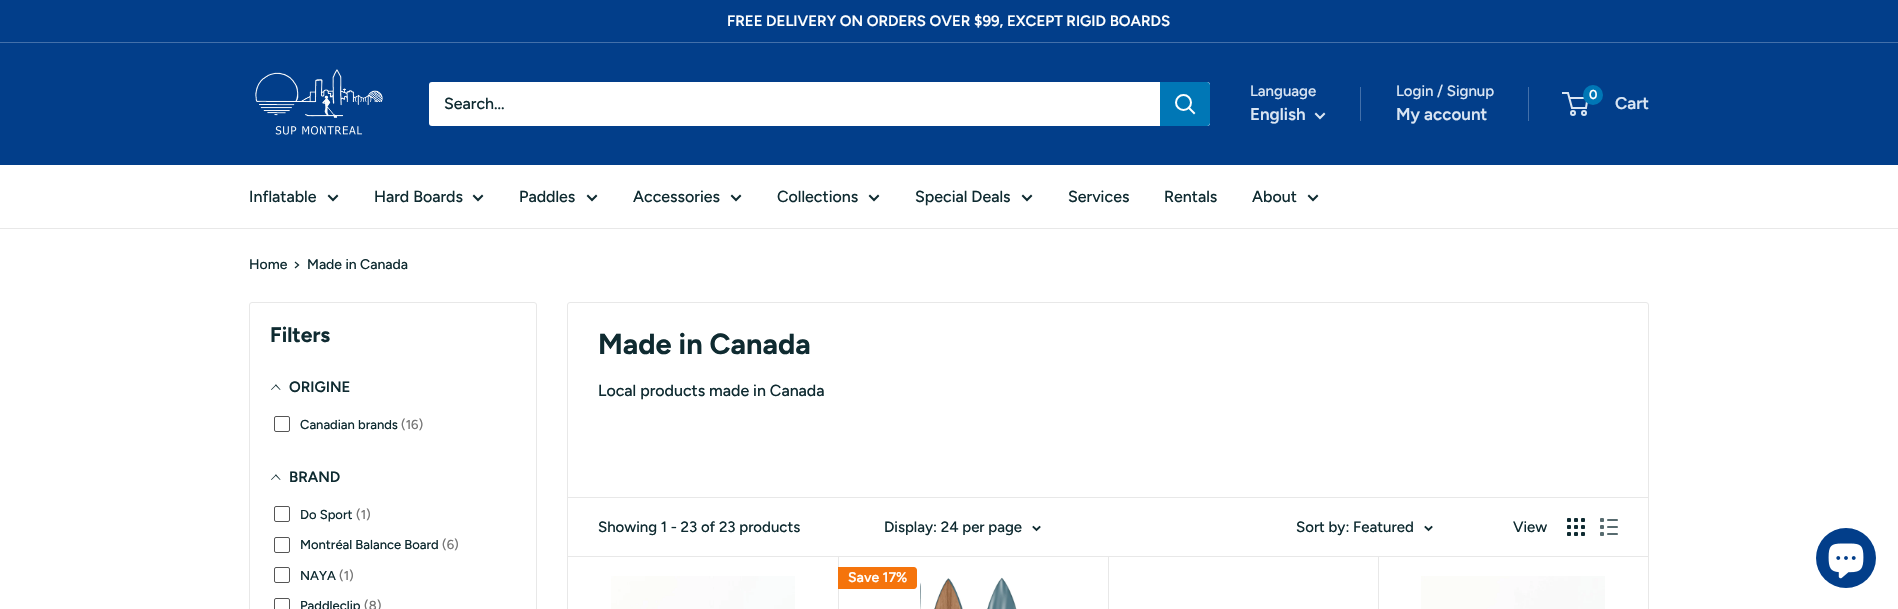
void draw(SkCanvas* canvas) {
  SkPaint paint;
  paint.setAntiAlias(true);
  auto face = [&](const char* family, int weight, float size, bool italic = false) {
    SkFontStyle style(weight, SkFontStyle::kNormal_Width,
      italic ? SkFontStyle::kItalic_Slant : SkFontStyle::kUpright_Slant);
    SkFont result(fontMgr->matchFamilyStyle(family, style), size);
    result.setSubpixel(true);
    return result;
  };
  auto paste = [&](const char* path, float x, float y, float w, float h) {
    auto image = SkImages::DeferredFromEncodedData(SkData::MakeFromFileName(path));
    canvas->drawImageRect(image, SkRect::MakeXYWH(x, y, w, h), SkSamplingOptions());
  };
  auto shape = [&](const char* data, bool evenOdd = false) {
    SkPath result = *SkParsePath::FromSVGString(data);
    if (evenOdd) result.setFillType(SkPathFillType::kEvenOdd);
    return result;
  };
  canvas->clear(0xffffffff);
  {
    const struct { float x, y, w, h; SkColor color; } items[] = {
      {0, 0, 1898, 42, 0xff023e8a},
      {0, 42, 1898, 1, 0xff4370aa},
      {0, 43, 1898, 122, 0xff023e8a},
    };
    for (auto [x, y, w, h, color] : items) {
      paint.setColor(color);
      canvas->drawRect(SkRect::MakeXYWH(x, y, w, h), paint);
    }
  }
  paste("img/1.png", 255, 69, 128, 66);
  paint.setColor(0xffffffff);
  canvas->drawRoundRect(SkRect::MakeXYWH(429, 82, 781, 44), 3, 3, paint);
  paint.setColor(0xff0077b6);
  canvas->drawPath(shape("M1160 82H1207C1208.5 82 1210 83.5 1210 85V123C1210 124.5 1208.5 126 1207 126H1160Z"), paint);
  paint.setStroke(true);
  paint.setStrokeWidth(2);
  paint.setStrokeCap(SkPaint::kSquare_Cap);
  paint.setColor(0xffffffff);
  canvas->drawPath(shape("M1194 113L1189 108"), paint);
  paint.setStrokeCap(SkPaint::kButt_Cap);
  canvas->drawCircle(1183.5f, 102.5f, 7.5f, paint);
  paint.setStrokeCap(SkPaint::kSquare_Cap);
  paint.setColor(0xffdbe6f3);
  canvas->drawPath(shape("M1324 114L1320 118L1316 114"), paint);
  paint.setStroke(false);
  paint.setColor(0xff4370aa);
  canvas->drawRect(SkRect::MakeXYWH(1360, 87, 1, 34), paint);
  canvas->drawRect(SkRect::MakeXYWH(1528, 87, 1, 34), paint);
  paint.setStroke(true);
  paint.setStrokeCap(SkPaint::kButt_Cap);
  paint.setColor(0xffdbe6f3);
  canvas->drawCircle(1573, 113, 2, paint);
  canvas->drawCircle(1584, 113, 2, paint);
  canvas->drawPath(shape("M1569.5 98H1587.5L1586 108H1572L1568 93H1562"), paint);
  paint.setStroke(false);
  paint.setColor(0xff0077b6);
  canvas->drawCircle(1593, 95, 10, paint);
  paint.setColor(0xffe8e8e8);
  canvas->drawRect(SkRect::MakeXYWH(0, 228, 1898, 1), paint);
  paint.setStroke(true);
  paint.setStrokeCap(SkPaint::kSquare_Cap);
  paint.setColor(0xff0f2b31);
  canvas->drawPath(shape("M337 196L333 200L329 196"), paint);
  canvas->drawPath(shape("M482 196L478 200L474 196"), paint);
  canvas->drawPath(shape("M596 196L592 200L588 196"), paint);
  canvas->drawPath(shape("M740 196L736 200L732 196"), paint);
  canvas->drawPath(shape("M878 196L874 200L870 196"), paint);
  canvas->drawPath(shape("M1031 196L1027 200L1023 196"), paint);
  canvas->drawPath(shape("M1317 196L1313 200L1309 196"), paint);
  paint.setStrokeWidth(1.3f);
  canvas->drawPath(shape("M295.5 262.5L298.5 265L295.5 267.5"), paint);
  paint.setStrokeWidth(1);
  paint.setStrokeCap(SkPaint::kButt_Cap);
  paint.setColor(0xffe8e8e8);
  canvas->drawRoundRect(SkRect::MakeXYWH(249.5f, 302.5f, 287, 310), 2.5f, 2.5f, paint);
  paint.setStroke(false);
  paint.setColor(0xff0f2b31);
  canvas->drawPath(shape("M271.5 390L271 389.5L276 384.5L276.5 385Z"), paint);
  canvas->drawPath(shape("M280 390L275 385L276 384.5L280.5 389.5Z"), paint);
  paint.setStroke(true);
  paint.setColor(0xff555555);
  canvas->drawRoundRect(SkRect::MakeXYWH(274.5f, 416.5f, 15, 15), 1.5f, 1.5f, paint);
  paint.setStroke(false);
  paint.setColor(0xff0f2b31);
  canvas->drawPath(shape("M271.5 480L271 479.5L276 474.5L276.5 475Z"), paint);
  canvas->drawPath(shape("M280 480L275 475L276 474.5L280.5 479.5Z"), paint);
  paint.setStroke(true);
  paint.setColor(0xff555555);
  canvas->drawRoundRect(SkRect::MakeXYWH(274.5f, 506.5f, 15, 15), 1.5f, 1.5f, paint);
  canvas->drawRoundRect(SkRect::MakeXYWH(274.5f, 537.5f, 15, 15), 1.5f, 1.5f, paint);
  canvas->drawRoundRect(SkRect::MakeXYWH(274.5f, 567.5f, 15, 15), 1.5f, 1.5f, paint);
  canvas->drawRoundRect(SkRect::MakeXYWH(274.5f, 598.5f, 15, 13), 1.5f, 1.5f, paint);
  paint.setColor(0xffe8e8e8);
  canvas->drawRoundRect(SkRect::MakeXYWH(567.5f, 302.5f, 1081, 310), 2.5f, 2.5f, paint);
  paint.setStroke(false);
  {
    const struct { float x, y, w, h; SkColor color; } items[] = {
      {568, 497, 1080, 1, 0xffe8e8e8},
      {838, 556, 1, 53, 0xffe8e8e8},
      {1108, 556, 1, 53, 0xffe8e8e8},
      {1378, 556, 1, 53, 0xffe8e8e8},
      {568, 556, 1080, 1, 0xffe8e8e8},
    };
    for (auto [x, y, w, h, color] : items) {
      paint.setColor(color);
      canvas->drawRect(SkRect::MakeXYWH(x, y, w, h), paint);
    }
  }
  paint.setStroke(true);
  paint.setStrokeWidth(1.9f);
  paint.setStrokeCap(SkPaint::kSquare_Cap);
  paint.setColor(0xff0f2b31);
  canvas->drawPath(shape("M1039.5 527L1036.5 530L1033.5 527"), paint);
  canvas->drawPath(shape("M1431.5 527L1428.5 530L1425.5 527"), paint);
  paste("img/2.png", 1567, 518, 18, 18);
  paste("img/3.png", 1600, 518, 18, 18);
  paste("img/4.png", 611, 576, 184, 33);
  paint.setStroke(false);
  paint.setColor(0xfff5740c);
  canvas->drawPath(shape("M838 567H914C915.5 567 917 568.5 917 570V586C917 587.5 915.5 589 914 589H838Z"), paint);
  paste("img/5.png", 920, 577, 97, 32);
  paste("img/6.png", 1421, 576, 184, 33);
  paint.setColor(0xff023e8a);
  canvas->drawCircle(1846, 558, 30, paint);
  paste("img/7.png", 1828, 543, 36, 36);
  auto f0 = face("Figtree", 600, 15);
  paint.setColor(0xffffffff);
  canvas->drawString("FREE DELIVERY ON ORDERS OVER $99, EXCEPT RIGID BOARDS", 727, 26, f0, paint);
  auto f1 = face("Figtree", 500, 16);
  paint.setColor(0xff0f2b31);
  canvas->drawString("Search...", 444, 109, f1, paint);
  auto f2 = face("Figtree", 500, 15);
  paint.setColor(0xffdbe6f3);
  canvas->drawString("Language", 1250, 96, f2, paint);
  auto f3 = face("Figtree", 600, 17);
  canvas->drawString("English", 1250, 120, f3, paint);
  canvas->drawString("Login / Signup", 1396, 96, f2, paint);
  canvas->drawString("My account", 1396, 120, f3, paint);
  auto f4 = face("Figtree", 600, 13);
  paint.setColor(0xffffffff);
  canvas->drawString("0", 1589, 99, f4, paint);
  paint.setColor(0xffdbe6f3);
  canvas->drawString("Cart", 1615, 109, f3, paint);
  paint.setColor(0xff0f2b31);
  {
    const struct { const char* s; float x, y; } items[] = {
      {"Inflatable", 249, 202},
      {"Hard Boards", 374, 202},
      {"Paddles", 519, 202},
      {"Accessories", 633, 202},
      {"Collections", 777, 202},
      {"Special Deals", 915, 202},
      {"Services", 1068, 202},
      {"Rentals", 1164, 202},
      {"About", 1252, 202},
    };
    for (auto [s, x, y] : items) {
      canvas->drawString(s, x, y, f1, paint);
    }
  }
  auto f5 = face("Figtree", 500, 14);
  canvas->drawString("Home", 249, 269, f5, paint);
  canvas->drawString("Made in Canada", 307, 269, f5, paint);
  auto f6 = face("Figtree", 700, 21);
  canvas->drawString("Filters", 270, 342, f6, paint);
  canvas->drawString("ORIGINE", 289, 392, f0, paint);
  auto f7 = face("Figtree", 500, 13);
  canvas->drawString("Canadian brands", 300, 429, f7, paint);
  paint.setColor(0xff767676);
  canvas->drawString("(16)", 401, 429, f7, paint);
  paint.setColor(0xff0f2b31);
  canvas->drawString("BRAND", 289, 482, f0, paint);
  canvas->drawString("Do Sport", 300, 519, f7, paint);
  paint.setColor(0xff767676);
  canvas->drawString("(1)", 356, 519, f7, paint);
  paint.setColor(0xff0f2b31);
  canvas->drawString("Montréal Balance Board", 300, 549, f7, paint);
  paint.setColor(0xff767676);
  canvas->drawString("(6)", 442, 549, f7, paint);
  paint.setColor(0xff0f2b31);
  canvas->drawString("NAYA", 300, 580, f7, paint);
  paint.setColor(0xff767676);
  canvas->drawString("(1)", 339, 580, f7, paint);
  paint.setColor(0xff0f2b31);
  canvas->drawString("Paddleclip", 300, 610, f7, paint);
  paint.setColor(0xff767676);
  canvas->drawString("(8)", 364, 610, f7, paint);
  auto f8 = face("Figtree", 700, 29);
  paint.setColor(0xff0f2b31);
  canvas->drawString("Made in Canada", 598, 354, f8, paint);
  canvas->drawString("Local products made in Canada", 598, 396, f1, paint);
  {
    const struct { const char* s; float x, y; } items[] = {
      {"Showing 1 - 23 of 23 products", 598, 532},
      {"Display: 24 per page", 884, 532},
      {"Sort by: Featured", 1296, 532},
      {"View", 1513, 532},
    };
    for (auto [s, x, y] : items) {
      canvas->drawString(s, x, y, f2, paint);
    }
  }
  auto f9 = face("Figtree", 600, 14);
  paint.setColor(0xffffffff);
  canvas->drawString("Save 17%", 848, 582, f9, paint);
}
